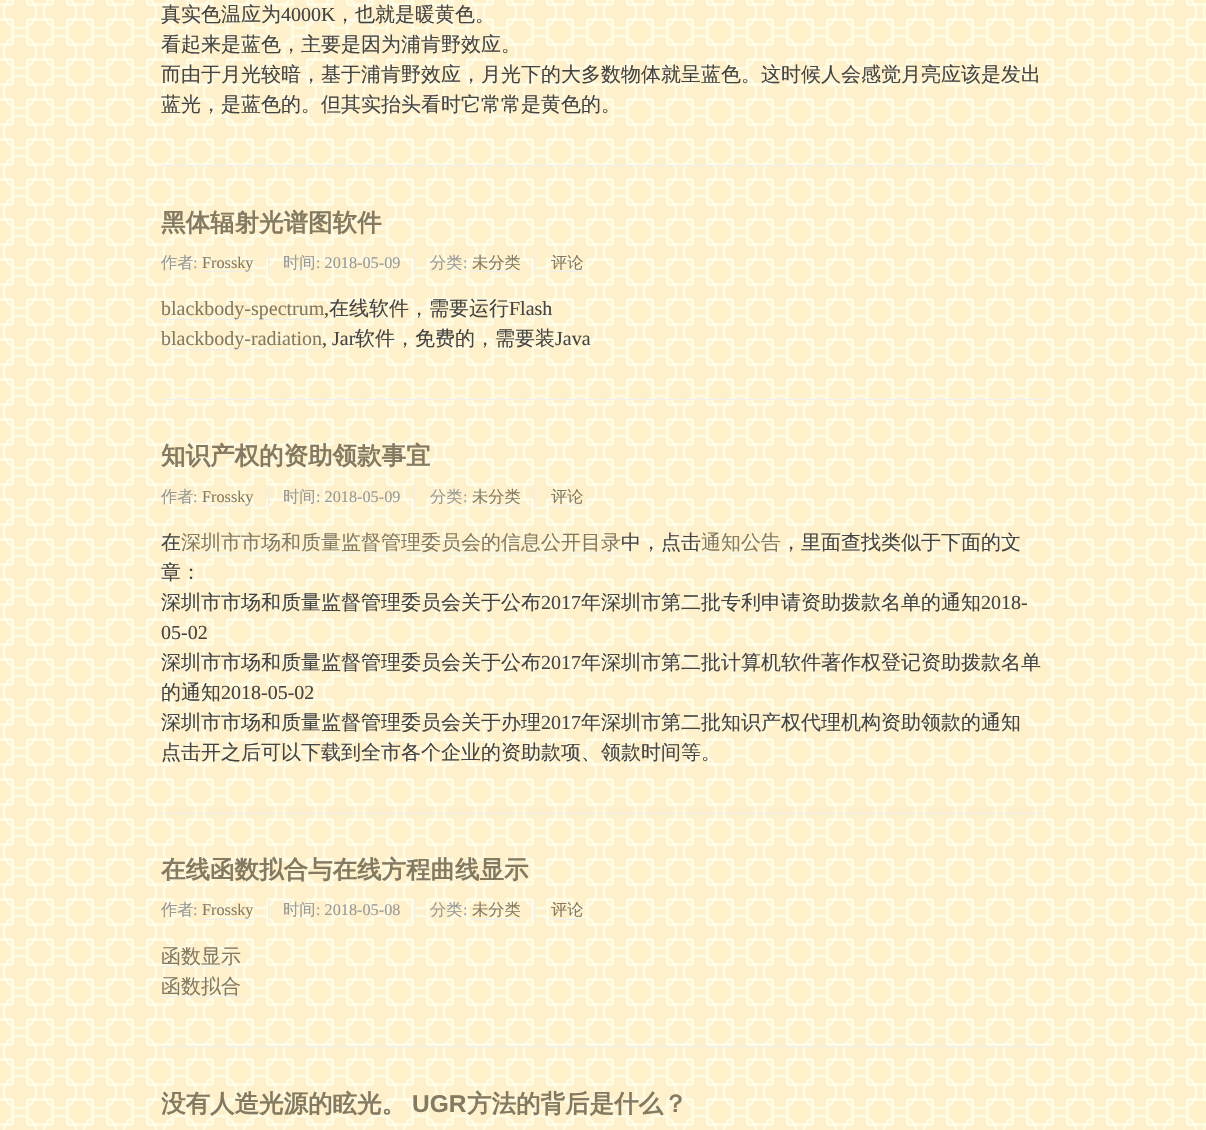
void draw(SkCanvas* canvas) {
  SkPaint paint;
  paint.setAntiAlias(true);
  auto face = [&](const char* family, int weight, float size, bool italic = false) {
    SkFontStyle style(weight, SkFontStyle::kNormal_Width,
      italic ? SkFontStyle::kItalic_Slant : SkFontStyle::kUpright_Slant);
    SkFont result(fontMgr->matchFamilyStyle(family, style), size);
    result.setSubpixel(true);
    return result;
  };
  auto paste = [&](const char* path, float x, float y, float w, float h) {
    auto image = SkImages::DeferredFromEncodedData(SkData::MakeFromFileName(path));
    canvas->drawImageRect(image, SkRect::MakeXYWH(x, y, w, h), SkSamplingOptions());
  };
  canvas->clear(0xffffffff);
  paste("img/1.png", 0, 0, 1206, 1130);
  {
    const struct { float x, y, w, h; SkColor color; } items[] = {
      {161, 165, 885, 1, 0xffeeeeee},
      {161, 399, 885, 1, 0xffeeeeee},
      {201, 271, 52, 1, 0xffeeeeee},
      {268, 251, 1, 23, 0xffeeeeee},
      {414, 251, 1, 23, 0xffeeeeee},
      {471, 271, 49, 1, 0xffeeeeee},
      {534, 251, 1, 23, 0xffeeeeee},
      {550, 271, 33, 1, 0xffeeeeee},
      {161, 319, 163, 1, 0xffeeeeee},
      {161, 349, 160, 1, 0xffeeeeee},
      {161, 813, 885, 1, 0xffeeeeee},
      {201, 505, 52, 1, 0xffeeeeee},
      {268, 485, 1, 23, 0xffeeeeee},
      {414, 485, 1, 23, 0xffeeeeee},
      {471, 505, 49, 1, 0xffeeeeee},
      {534, 485, 1, 23, 0xffeeeeee},
      {550, 505, 33, 1, 0xffeeeeee},
      {181, 553, 440, 1, 0xffeeeeee},
      {701, 553, 80, 1, 0xffeeeeee},
      {161, 1046, 885, 1, 0xffeeeeee},
      {201, 919, 52, 1, 0xffeeeeee},
      {268, 899, 1, 22, 0xffeeeeee},
      {414, 899, 1, 22, 0xffeeeeee},
      {471, 919, 49, 1, 0xffeeeeee},
      {534, 899, 1, 22, 0xffeeeeee},
      {550, 919, 33, 1, 0xffeeeeee},
      {161, 966, 80, 1, 0xffeeeeee},
      {161, 996, 80, 1, 0xffeeeeee},
    };
    for (auto [x, y, w, h, color] : items) {
      paint.setColor(color);
      canvas->drawRect(SkRect::MakeXYWH(x, y, w, h), paint);
    }
  }
  auto f0 = face("WenQuanYi Zen Hei", 500, 20);
  paint.setColor(0xff444444);
  canvas->drawString("真实色温应为", 161, 21, f0, paint);
  auto f1 = face("Liberation Serif", 400, 20);
  canvas->drawString("4000K", 281, 21, f1, paint);
  {
    const struct { const char* s; float x, y; } items[] = {
      {"，也就是暖黄色。", 335, 21},
      {"看起来是蓝色，主要是因为浦肯野效应。", 161, 51},
      {"而由于月光较暗，基于浦肯野效应，月光下的大多数物体就呈蓝色。这时候人会感觉月亮应该是发出", 161, 81},
      {"蓝光，是蓝色的。但其实抬头看时它常常是黄色的。", 161, 111},
    };
    for (auto [s, x, y] : items) {
      canvas->drawString(s, x, y, f0, paint);
    }
  }
  auto f2 = face("WenQuanYi Zen Hei", 700, 24.5f);
  paint.setColor(0xff847a62);
  canvas->drawString("黑体辐射光谱图软件", 161, 231, f2, paint);
  auto f3 = face("WenQuanYi Zen Hei", 500, 16.25f);
  paint.setColor(0xff999999);
  canvas->drawString("作者", 161, 268, f3, paint);
  auto f4 = face("Liberation Serif", 400, 16.25f);
  canvas->drawString(":", 193, 268, f4, paint);
  paint.setColor(0xff847a62);
  canvas->drawString("Frossky", 202, 268, f4, paint);
  paint.setColor(0xff999999);
  canvas->drawString("时间", 283, 268, f3, paint);
  canvas->drawString(": 2018-05-09", 316, 268, f4, paint);
  canvas->drawString("分类", 430, 268, f3, paint);
  canvas->drawString(":", 463, 268, f4, paint);
  paint.setColor(0xff847a62);
  canvas->drawString("未分类", 472, 268, f3, paint);
  canvas->drawString("评论", 551, 268, f3, paint);
  canvas->drawString("blackbody-spectrum", 161, 315, f1, paint);
  paint.setColor(0xff444444);
  canvas->drawString(",", 324, 315, f1, paint);
  canvas->drawString("在线软件，需要运行", 329, 315, f0, paint);
  canvas->drawString("Flash", 509, 315, f1, paint);
  paint.setColor(0xff847a62);
  canvas->drawString("blackbody-radiation", 161, 345, f1, paint);
  paint.setColor(0xff444444);
  canvas->drawString(", Jar", 322, 345, f1, paint);
  canvas->drawString("软件，免费的，需要装", 355, 345, f0, paint);
  canvas->drawString("Java", 555, 345, f1, paint);
  paint.setColor(0xff847a62);
  canvas->drawString("知识产权的资助领款事宜", 161, 464, f2, paint);
  paint.setColor(0xff999999);
  canvas->drawString("作者", 161, 502, f3, paint);
  canvas->drawString(":", 193, 502, f4, paint);
  paint.setColor(0xff847a62);
  canvas->drawString("Frossky", 202, 502, f4, paint);
  paint.setColor(0xff999999);
  canvas->drawString("时间", 283, 502, f3, paint);
  canvas->drawString(": 2018-05-09", 316, 502, f4, paint);
  canvas->drawString("分类", 430, 502, f3, paint);
  canvas->drawString(":", 463, 502, f4, paint);
  paint.setColor(0xff847a62);
  canvas->drawString("未分类", 472, 502, f3, paint);
  canvas->drawString("评论", 551, 502, f3, paint);
  paint.setColor(0xff444444);
  canvas->drawString("在", 161, 549, f0, paint);
  paint.setColor(0xff847a62);
  canvas->drawString("深圳市市场和质量监督管理委员会的信息公开目录", 181, 549, f0, paint);
  paint.setColor(0xff444444);
  canvas->drawString("中，点击", 621, 549, f0, paint);
  paint.setColor(0xff847a62);
  canvas->drawString("通知公告", 701, 549, f0, paint);
  paint.setColor(0xff444444);
  {
    const struct { const char* s; float x, y; } items[] = {
      {"，里面查找类似于下面的文", 781, 549},
      {"章：", 161, 579},
      {"深圳市市场和质量监督管理委员会关于公布", 161, 609},
    };
    for (auto [s, x, y] : items) {
      canvas->drawString(s, x, y, f0, paint);
    }
  }
  canvas->drawString("2017", 541, 609, f1, paint);
  canvas->drawString("年深圳市第二批专利申请资助拨款名单的通知", 581, 609, f0, paint);
  canvas->drawString("2018-", 981, 609, f1, paint);
  canvas->drawString("05-02", 161, 639, f1, paint);
  canvas->drawString("深圳市市场和质量监督管理委员会关于公布", 161, 669, f0, paint);
  canvas->drawString("2017", 541, 669, f1, paint);
  canvas->drawString("年深圳市第二批计算机软件著作权登记资助拨款名单", 581, 669, f0, paint);
  canvas->drawString("的通知", 161, 699, f0, paint);
  canvas->drawString("2018-05-02", 221, 699, f1, paint);
  canvas->drawString("深圳市市场和质量监督管理委员会关于办理", 161, 729, f0, paint);
  canvas->drawString("2017", 541, 729, f1, paint);
  canvas->drawString("年深圳市第二批知识产权代理机构资助领款的通知", 581, 729, f0, paint);
  canvas->drawString("点击开之后可以下载到全市各个企业的资助款项、领款时间等。", 161, 759, f0, paint);
  paint.setColor(0xff847a62);
  canvas->drawString("在线函数拟合与在线方程曲线显示", 161, 878, f2, paint);
  paint.setColor(0xff999999);
  canvas->drawString("作者", 161, 915, f3, paint);
  canvas->drawString(":", 193, 915, f4, paint);
  paint.setColor(0xff847a62);
  canvas->drawString("Frossky", 202, 915, f4, paint);
  paint.setColor(0xff999999);
  canvas->drawString("时间", 283, 915, f3, paint);
  canvas->drawString(": 2018-05-08", 316, 915, f4, paint);
  canvas->drawString("分类", 430, 915, f3, paint);
  canvas->drawString(":", 463, 915, f4, paint);
  paint.setColor(0xff847a62);
  canvas->drawString("未分类", 472, 915, f3, paint);
  canvas->drawString("评论", 551, 915, f3, paint);
  canvas->drawString("函数显示", 161, 963, f0, paint);
  canvas->drawString("函数拟合", 161, 993, f0, paint);
  canvas->drawString("没有人造光源的眩光。", 161, 1112, f2, paint);
  auto f5 = face("Liberation Sans", 700, 24.5f);
  canvas->drawString("UGR", 412, 1112, f5, paint);
  canvas->drawString("方法的背后是什么？", 467, 1112, f2, paint);
}
